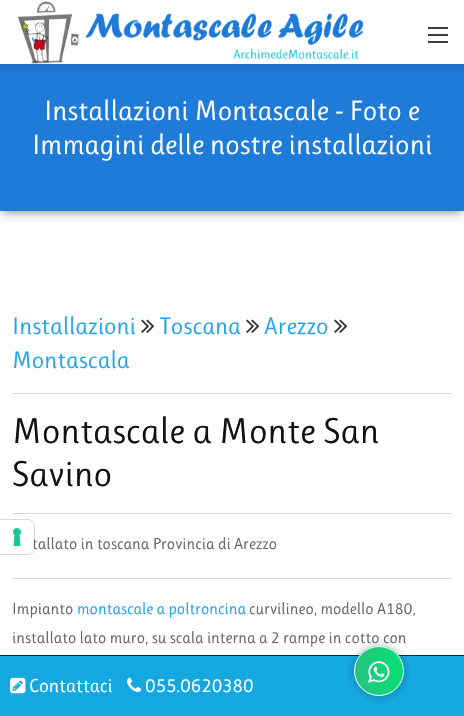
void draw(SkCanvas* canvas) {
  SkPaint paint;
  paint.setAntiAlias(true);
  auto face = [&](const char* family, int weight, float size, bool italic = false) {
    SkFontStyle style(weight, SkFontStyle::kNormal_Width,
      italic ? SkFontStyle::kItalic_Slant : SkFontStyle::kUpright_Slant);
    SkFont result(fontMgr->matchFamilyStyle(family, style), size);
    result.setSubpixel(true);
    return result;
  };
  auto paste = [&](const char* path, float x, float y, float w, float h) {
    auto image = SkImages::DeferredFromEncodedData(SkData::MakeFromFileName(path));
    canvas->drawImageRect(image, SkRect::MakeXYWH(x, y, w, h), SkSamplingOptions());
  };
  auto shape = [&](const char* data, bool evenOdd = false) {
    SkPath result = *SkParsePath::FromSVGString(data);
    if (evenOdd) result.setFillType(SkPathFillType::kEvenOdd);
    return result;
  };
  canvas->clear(0xffffffff);
  paint.setColor(0xff1f7bd8);
  canvas->drawRect(SkRect::MakeXYWH(0, 64, 464, 147), paint);
  paint.setColor(0x33000000);
  paint.setMaskFilter(SkMaskFilter::MakeBlur(kNormal_SkBlurStyle, 5));
  canvas->drawRect(SkRect::MakeXYWH(0, 0, 464, 64), paint);
  paint.setMaskFilter(nullptr);
  canvas->save();
  canvas->clipRect(SkRect::MakeXYWH(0, 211, 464, 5));
  paint.setColor(0x4d000000);
  paint.setMaskFilter(SkMaskFilter::MakeBlur(kNormal_SkBlurStyle, 3.5f));
  canvas->drawRect(SkRect::MakeXYWH(3, 70, 458, 141), paint);
  paint.setMaskFilter(nullptr);
  canvas->restore();
  canvas->save();
  canvas->clipRect(SkRect::MakeXYWH(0, 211, 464, 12));
  paint.setColor(0x4032325d);
  paint.setMaskFilter(SkMaskFilter::MakeBlur(kNormal_SkBlurStyle, 6));
  canvas->drawRect(SkRect::MakeXYWH(2, 72, 460, 143), paint);
  paint.setMaskFilter(nullptr);
  canvas->restore();
  paint.setColor(0xffffffff);
  canvas->drawRect(SkRect::MakeXYWH(0, 0, 464, 64), paint);
  paste("img/1.png", 18, 1, 346, 63);
  {
    const struct { float x, y, w, h; SkColor color; } items[] = {
      {428, 27, 20, 2, 0xff3d3d3d},
      {428, 34, 20, 2, 0xff3d3d3d},
      {428, 41, 20, 2, 0xff3d3d3d},
    };
    for (auto [x, y, w, h, color] : items) {
      paint.setColor(color);
      canvas->drawRect(SkRect::MakeXYWH(x, y, w, h), paint);
    }
  }
  paste("img/2.png", 141, 319, 14, 14);
  paste("img/2.png", 246, 319, 14, 14);
  paste("img/2.png", 334, 319, 14, 14);
  {
    const struct { float x, y, w, h; SkColor color; } items[] = {
      {12, 393, 440, 1, 0xffd9d9d9},
      {12, 513, 440, 1, 0xffd9d9d9},
      {12, 578, 440, 1, 0xffd9d9d9},
      {0, 656, 464, 60, 0xff15a8e0},
      {0, 655, 464, 1, 0xff022a65},
    };
    for (auto [x, y, w, h, color] : items) {
      paint.setColor(color);
      canvas->drawRect(SkRect::MakeXYWH(x, y, w, h), paint);
    }
  }
  paste("img/3.png", 10, 677, 16, 17);
  paste("img/4.png", 127, 677, 15, 15);
  paint.setColor(0x4d0c0c0c);
  paint.setMaskFilter(SkMaskFilter::MakeBlur(kNormal_SkBlurStyle, 5));
  canvas->drawRoundRect(SkRect::MakeXYWH(354, 646, 50, 50), 25, 25, paint);
  paint.setMaskFilter(nullptr);
  auto f0 = face("Ruluko", 400, 28);
  paint.setColor(0xffffffff);
  canvas->drawString("Installazioni Montascale - Foto e", 44, 120, f0, paint);
  canvas->drawString("Immagini delle nostre installazioni", 32, 154, f0, paint);
  auto f1 = face("Ruluko", 400, 24);
  paint.setColor(0xff20a3f0);
  {
    const struct { const char* s; float x, y; } items[] = {
      {"Installazioni", 12, 334},
      {"Toscana", 160, 334},
      {"Arezzo", 264, 334},
      {"Montascala", 12, 368},
    };
    for (auto [s, x, y] : items) {
      canvas->drawString(s, x, y, f1, paint);
    }
  }
  auto f2 = face("Ruluko", 400, 36);
  paint.setColor(0xff111111);
  canvas->drawString("Montascale a Monte San", 12, 443, f2, paint);
  canvas->drawString("Savino", 12, 486, f2, paint);
  auto f3 = face("Ruluko", 400, 16);
  paint.setColor(0xff666666);
  canvas->drawString("tallato in toscana Provincia di Arezzo", 32, 549, f3, paint);
  canvas->drawString("Impianto", 12, 614, f3, paint);
  paint.setColor(0xff20a3f0);
  canvas->drawString("montascale a poltroncina", 77, 614, f3, paint);
  paint.setColor(0xff666666);
  canvas->drawString("curvilineo, modello A180,", 249, 614, f3, paint);
  canvas->drawString("installato lato muro, su scala interna a 2 rampe in cotto con", 12, 643, f3, paint);
  auto f4 = face("Ruluko", 400, 19);
  paint.setColor(0xffffffff);
  canvas->drawString("Contattaci", 29, 692, f4, paint);
  canvas->drawString("055.0620380", 145, 692, f4, paint);
  canvas->save();
  canvas->clipPath(shape("M379 646C393 646 404 657 404 671C404 685 393 696 379 696C365 696 354 685 354 671C354 657 365 646 379 646Z"), true);
  {
    const SkColor colors[] = {0xff26c281, 0xff09e072};
    const float stops[] = {0, 1};
    const SkPoint ends[] = {{355, 671}, {403, 671}};
    paint.setShader(SkGradientShader::MakeLinear(ends, colors, stops, 2, SkTileMode::kClamp));
    paint.setAlpha(255);
  }
  canvas->drawRect(SkRect::MakeXYWH(355, 646, 48, 50), paint);
  canvas->restore();
  paint.setStroke(true);
  paint.setStrokeWidth(1);
  paint.setShader(nullptr);
  paint.setColor(0xffffffff);
  canvas->drawCircle(379, 671, 24.5f, paint);
  paste("img/5.png", 368, 661, 22, 22);
  paint.setColor(0x26000000);
  canvas->drawPath(shape("M-.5 519.5H28C31.5 519.5 34.5 522.5 34.5 526V548C34.5 551.5 31.5 554.5 28 554.5H-.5Z"), paint);
  paint.setStroke(false);
  paint.setColor(0xffffffff);
  canvas->drawPath(shape("M0 520H28C31.5 520 34 522.5 34 526V548C34 551.5 31.5 554 28 554H0Z"), paint);
  paste("img/6.png", 13, 528, 8, 18);
}
